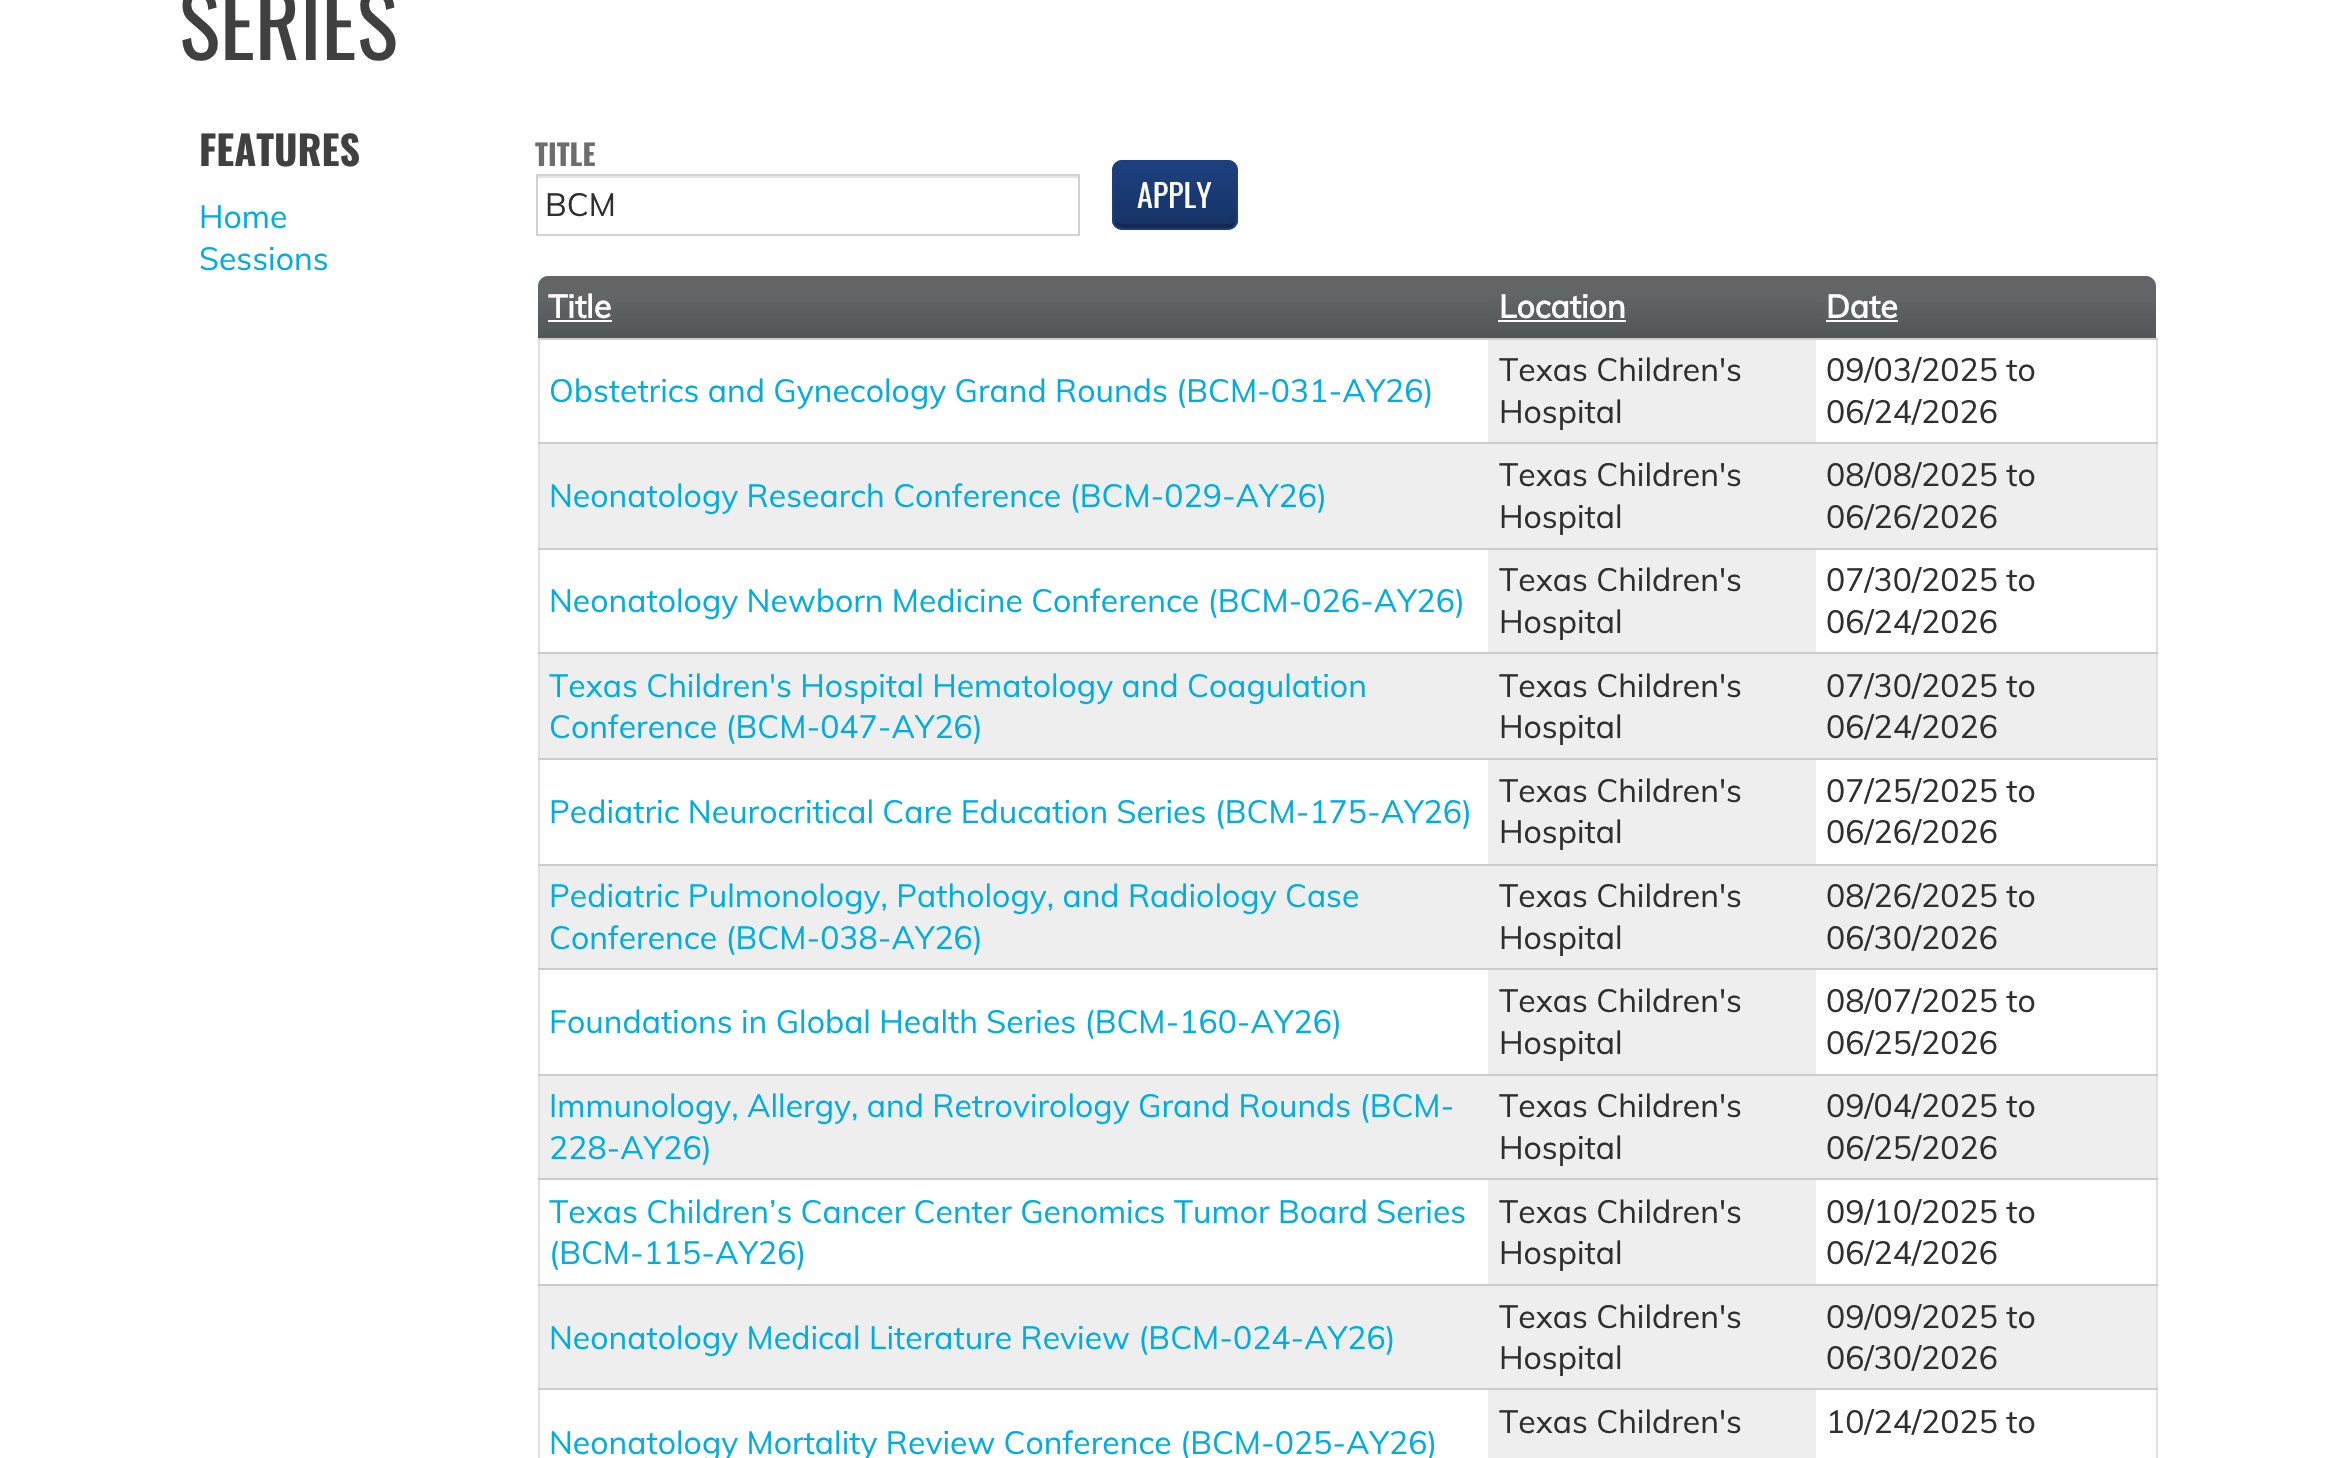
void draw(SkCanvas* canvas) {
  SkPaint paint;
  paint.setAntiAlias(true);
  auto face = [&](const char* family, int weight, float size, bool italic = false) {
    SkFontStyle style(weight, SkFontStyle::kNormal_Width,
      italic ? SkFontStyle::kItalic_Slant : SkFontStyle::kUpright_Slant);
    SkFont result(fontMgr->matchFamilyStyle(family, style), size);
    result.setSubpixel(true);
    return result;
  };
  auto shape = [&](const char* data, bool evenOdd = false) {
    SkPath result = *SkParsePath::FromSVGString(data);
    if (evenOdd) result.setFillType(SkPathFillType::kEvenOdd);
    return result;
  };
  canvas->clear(0xffffffff);
  paint.setColor(0xffe6e6e6);
  canvas->drawRect(SkRect::MakeXYWH(538, 176, 540, 2), paint);
  paint.setStroke(true);
  paint.setStrokeWidth(2);
  paint.setColor(0xffd1d1d1);
  canvas->drawRect(SkRect::MakeXYWH(537, 175, 542, 60), paint);
  paint.setStroke(false);
  paint.setColor(0xff1c407f);
  canvas->drawRoundRect(SkRect::MakeXYWH(1112, 160, 126, 70), 10, 10, paint);
  canvas->save();
  canvas->clipPath(shape("M1122 160H1228C1233.5 160 1238 164.5 1238 170V220C1238 225.5 1233.5 230 1228 230H1122C1116.5 230 1112 225.5 1112 220V170C1112 164.5 1116.5 160 1122 160Z"), true);
  {
    const SkColor colors[] = {0x33000000, 0x00000000};
    const float stops[] = {0, 1};
    const SkPoint ends[] = {{1175, 228}, {1175, 162}};
    paint.setShader(SkGradientShader::MakeLinear(ends, colors, stops, 2, SkTileMode::kClamp));
    paint.setAlpha(255);
  }
  canvas->drawRect(SkRect::MakeXYWH(1112, 169, 126, 59), paint);
  canvas->restore();
  paint.setShader(nullptr);
  paint.setColor(0xff122952);
  canvas->drawPath(shape("M1114 220C1114 225 1118 228 1122 228H1228C1232 228 1236 225 1236 220C1234 223 1231 224 1228 224H1122C1119 224 1116 223 1114 220Z"), paint);
  paint.setStroke(true);
  paint.setColor(0xff1c407f);
  canvas->drawRoundRect(SkRect::MakeXYWH(1113, 161, 124, 68), 9, 9, paint);
  paint.setStroke(false);
  paint.setColor(0xff616566);
  canvas->drawPath(shape("M548 276H1488V338H538V286C538 280.5 542.5 276 548 276Z"), paint);
  {
    const SkColor colors[] = {0x26000000, 0x00000000};
    const float stops[] = {0, 0.7f};
    const SkPoint ends[] = {{1013, 338}, {1013, 276}};
    paint.setShader(SkGradientShader::MakeLinear(ends, colors, stops, 2, SkTileMode::kClamp));
    paint.setAlpha(255);
  }
  canvas->drawRect(SkRect::MakeXYWH(538, 302, 950, 36), paint);
  paint.setShader(nullptr);
  paint.setColor(0xffffffff);
  canvas->drawRect(SkRect::MakeXYWH(548, 320, 64, 2), paint);
  {
    const SkColor colors[] = {0xff525657, 0xff616566};
    const float stops[] = {0, 0.7f};
    const SkPoint ends[] = {{1652, 338}, {1652, 276}};
    paint.setShader(SkGradientShader::MakeLinear(ends, colors, stops, 2, SkTileMode::kClamp));
    paint.setAlpha(255);
  }
  canvas->drawRect(SkRect::MakeXYWH(1488, 276, 328, 62), paint);
  paint.setShader(nullptr);
  paint.setColor(0xffffffff);
  canvas->drawRect(SkRect::MakeXYWH(1498, 320, 128, 2), paint);
  paint.setColor(0xff616566);
  canvas->drawPath(shape("M1816 276H2146C2151.5 276 2156 280.5 2156 286V338H1816Z"), paint);
  {
    const SkColor colors[] = {0x26000000, 0x00000000};
    const float stops[] = {0, 0.7f};
    const SkPoint ends[] = {{1986, 338}, {1986, 276}};
    paint.setShader(SkGradientShader::MakeLinear(ends, colors, stops, 2, SkTileMode::kClamp));
    paint.setAlpha(255);
  }
  canvas->drawRect(SkRect::MakeXYWH(1816, 302, 340, 36), paint);
  paint.setShader(nullptr);
  {
    const struct { float x, y, w, h; SkColor color; } items[] = {
      {1826, 320, 72, 2, 0xffffffff},
      {2156, 338, 2, 1120, 0xffe1e1e1},
      {538, 338, 2, 1120, 0xffe1e1e1},
      {538, 338, 1620, 2, 0xffcccccc},
      {1488, 340, 328, 102, 0xffeeeeee},
      {540, 444, 1616, 104, 0xffeeeeee},
      {538, 442, 1620, 2, 0xffcccccc},
      {538, 548, 1620, 2, 0xffcccccc},
      {1488, 550, 328, 102, 0xffeeeeee},
      {540, 654, 1616, 104, 0xffeeeeee},
      {538, 652, 1620, 2, 0xffcccccc},
      {538, 758, 1620, 2, 0xffcccccc},
      {1488, 760, 328, 104, 0xffeeeeee},
      {540, 866, 1616, 102, 0xffeeeeee},
      {538, 864, 1620, 2, 0xffcccccc},
      {538, 968, 1620, 2, 0xffcccccc},
      {1488, 970, 328, 104, 0xffeeeeee},
      {540, 1076, 1616, 102, 0xffeeeeee},
      {538, 1074, 1620, 2, 0xffcccccc},
      {538, 1178, 1620, 2, 0xffcccccc},
      {1488, 1180, 328, 104, 0xffeeeeee},
      {540, 1286, 1616, 102, 0xffeeeeee},
      {538, 1284, 1620, 2, 0xffcccccc},
      {538, 1388, 1620, 2, 0xffcccccc},
      {1488, 1390, 328, 68, 0xffeeeeee},
    };
    for (auto [x, y, w, h, color] : items) {
      paint.setColor(color);
      canvas->drawRect(SkRect::MakeXYWH(x, y, w, h), paint);
    }
  }
  auto f0 = face("Oswald", 400, 86.5f);
  paint.setColor(0xff414041);
  canvas->drawString("SERIES", 179, 60, f0, paint);
  auto f1 = face("Oswald", 700, 40);
  canvas->drawString("FEATURES", 199, 166, f1, paint);
  auto f2 = face("Muli", 400, 32);
  paint.setColor(0xff01adde);
  canvas->drawString("Home", 199, 228, f2, paint);
  canvas->drawString("Sessions", 199, 270, f2, paint);
  auto f3 = face("Oswald", 700, 29);
  paint.setColor(0xff6d6d6d);
  canvas->drawString("TITLE", 535, 166, f3, paint);
  paint.setColor(0xff2f2f2f);
  canvas->drawString("BCM", 545, 216, f2, paint);
  auto f4 = face("Oswald", 400, 32);
  paint.setColor(0xffffffff);
  canvas->drawString("APPLY", 1137, 208, f4, paint);
  auto f5 = face("Muli", 700, 32);
  {
    const struct { const char* s; float x, y; } items[] = {
      {"Title", 548, 318},
      {"Location", 1499, 318},
      {"Date", 1826, 318},
    };
    for (auto [s, x, y] : items) {
      canvas->drawString(s, x, y, f5, paint);
    }
  }
  paint.setColor(0xff01adde);
  canvas->drawString("Obstetrics and Gynecology Grand Rounds (BCM-031-AY26)", 549, 402, f2, paint);
  paint.setColor(0xff2f2f2f);
  {
    const struct { const char* s; float x, y; } items[] = {
      {"Texas Children's", 1499, 381},
      {"Hospital", 1499, 423},
      {"09/03/2025 to", 1826, 381},
      {"06/24/2026", 1826, 423},
    };
    for (auto [s, x, y] : items) {
      canvas->drawString(s, x, y, f2, paint);
    }
  }
  paint.setColor(0xff01adde);
  canvas->drawString("Neonatology Research Conference (BCM-029-AY26)", 549, 507, f2, paint);
  paint.setColor(0xff2f2f2f);
  {
    const struct { const char* s; float x, y; } items[] = {
      {"Texas Children's", 1499, 486},
      {"Hospital", 1499, 528},
      {"08/08/2025 to", 1826, 486},
      {"06/26/2026", 1826, 528},
    };
    for (auto [s, x, y] : items) {
      canvas->drawString(s, x, y, f2, paint);
    }
  }
  paint.setColor(0xff01adde);
  canvas->drawString("Neonatology Newborn Medicine Conference (BCM-026-AY26)", 549, 612, f2, paint);
  paint.setColor(0xff2f2f2f);
  {
    const struct { const char* s; float x, y; } items[] = {
      {"Texas Children's", 1499, 591},
      {"Hospital", 1499, 633},
      {"07/30/2025 to", 1826, 591},
      {"06/24/2026", 1826, 633},
    };
    for (auto [s, x, y] : items) {
      canvas->drawString(s, x, y, f2, paint);
    }
  }
  paint.setColor(0xff01adde);
  canvas->drawString("Texas Children's Hospital Hematology and Coagulation", 549, 697, f2, paint);
  canvas->drawString("Conference (BCM-047-AY26)", 549, 738, f2, paint);
  paint.setColor(0xff2f2f2f);
  {
    const struct { const char* s; float x, y; } items[] = {
      {"Texas Children's", 1499, 697},
      {"Hospital", 1499, 738},
      {"07/30/2025 to", 1826, 697},
      {"06/24/2026", 1826, 738},
    };
    for (auto [s, x, y] : items) {
      canvas->drawString(s, x, y, f2, paint);
    }
  }
  paint.setColor(0xff01adde);
  canvas->drawString("Pediatric Neurocritical Care Education Series (BCM-175-AY26)", 549, 823, f2, paint);
  paint.setColor(0xff2f2f2f);
  {
    const struct { const char* s; float x, y; } items[] = {
      {"Texas Children's", 1499, 802},
      {"Hospital", 1499, 843},
      {"07/25/2025 to", 1826, 802},
      {"06/26/2026", 1826, 843},
    };
    for (auto [s, x, y] : items) {
      canvas->drawString(s, x, y, f2, paint);
    }
  }
  paint.setColor(0xff01adde);
  canvas->drawString("Pediatric Pulmonology, Pathology, and Radiology Case", 549, 907, f2, paint);
  canvas->drawString("Conference (BCM-038-AY26)", 549, 949, f2, paint);
  paint.setColor(0xff2f2f2f);
  {
    const struct { const char* s; float x, y; } items[] = {
      {"Texas Children's", 1499, 907},
      {"Hospital", 1499, 949},
      {"08/26/2025 to", 1826, 907},
      {"06/30/2026", 1826, 949},
    };
    for (auto [s, x, y] : items) {
      canvas->drawString(s, x, y, f2, paint);
    }
  }
  paint.setColor(0xff01adde);
  canvas->drawString("Foundations in Global Health Series (BCM-160-AY26)", 549, 1033, f2, paint);
  paint.setColor(0xff2f2f2f);
  {
    const struct { const char* s; float x, y; } items[] = {
      {"Texas Children's", 1499, 1012},
      {"Hospital", 1499, 1054},
      {"08/07/2025 to", 1826, 1012},
      {"06/25/2026", 1826, 1054},
    };
    for (auto [s, x, y] : items) {
      canvas->drawString(s, x, y, f2, paint);
    }
  }
  paint.setColor(0xff01adde);
  canvas->drawString("Immunology, Allergy, and Retrovirology Grand Rounds (BCM-", 549, 1117, f2, paint);
  canvas->drawString("228-AY26)", 549, 1159, f2, paint);
  paint.setColor(0xff2f2f2f);
  {
    const struct { const char* s; float x, y; } items[] = {
      {"Texas Children's", 1499, 1117},
      {"Hospital", 1499, 1159},
      {"09/04/2025 to", 1826, 1117},
      {"06/25/2026", 1826, 1159},
    };
    for (auto [s, x, y] : items) {
      canvas->drawString(s, x, y, f2, paint);
    }
  }
  paint.setColor(0xff01adde);
  canvas->drawString("Texas Children’s Cancer Center Genomics Tumor Board Series", 549, 1223, f2, paint);
  canvas->drawString("(BCM-115-AY26)", 549, 1264, f2, paint);
  paint.setColor(0xff2f2f2f);
  {
    const struct { const char* s; float x, y; } items[] = {
      {"Texas Children's", 1499, 1223},
      {"Hospital", 1499, 1264},
      {"09/10/2025 to", 1826, 1223},
      {"06/24/2026", 1826, 1264},
    };
    for (auto [s, x, y] : items) {
      canvas->drawString(s, x, y, f2, paint);
    }
  }
  paint.setColor(0xff01adde);
  canvas->drawString("Neonatology Medical Literature Review (BCM-024-AY26)", 549, 1349, f2, paint);
  paint.setColor(0xff2f2f2f);
  {
    const struct { const char* s; float x, y; } items[] = {
      {"Texas Children's", 1499, 1328},
      {"Hospital", 1499, 1369},
      {"09/09/2025 to", 1826, 1328},
      {"06/30/2026", 1826, 1369},
      {"Texas Children's", 1499, 1433},
      {"10/24/2025 to", 1826, 1433},
    };
    for (auto [s, x, y] : items) {
      canvas->drawString(s, x, y, f2, paint);
    }
  }
  paint.setColor(0xff01adde);
  canvas->drawString("Neonatology Mortality Review Conference (BCM-025-AY26)", 549, 1454, f2, paint);
}
